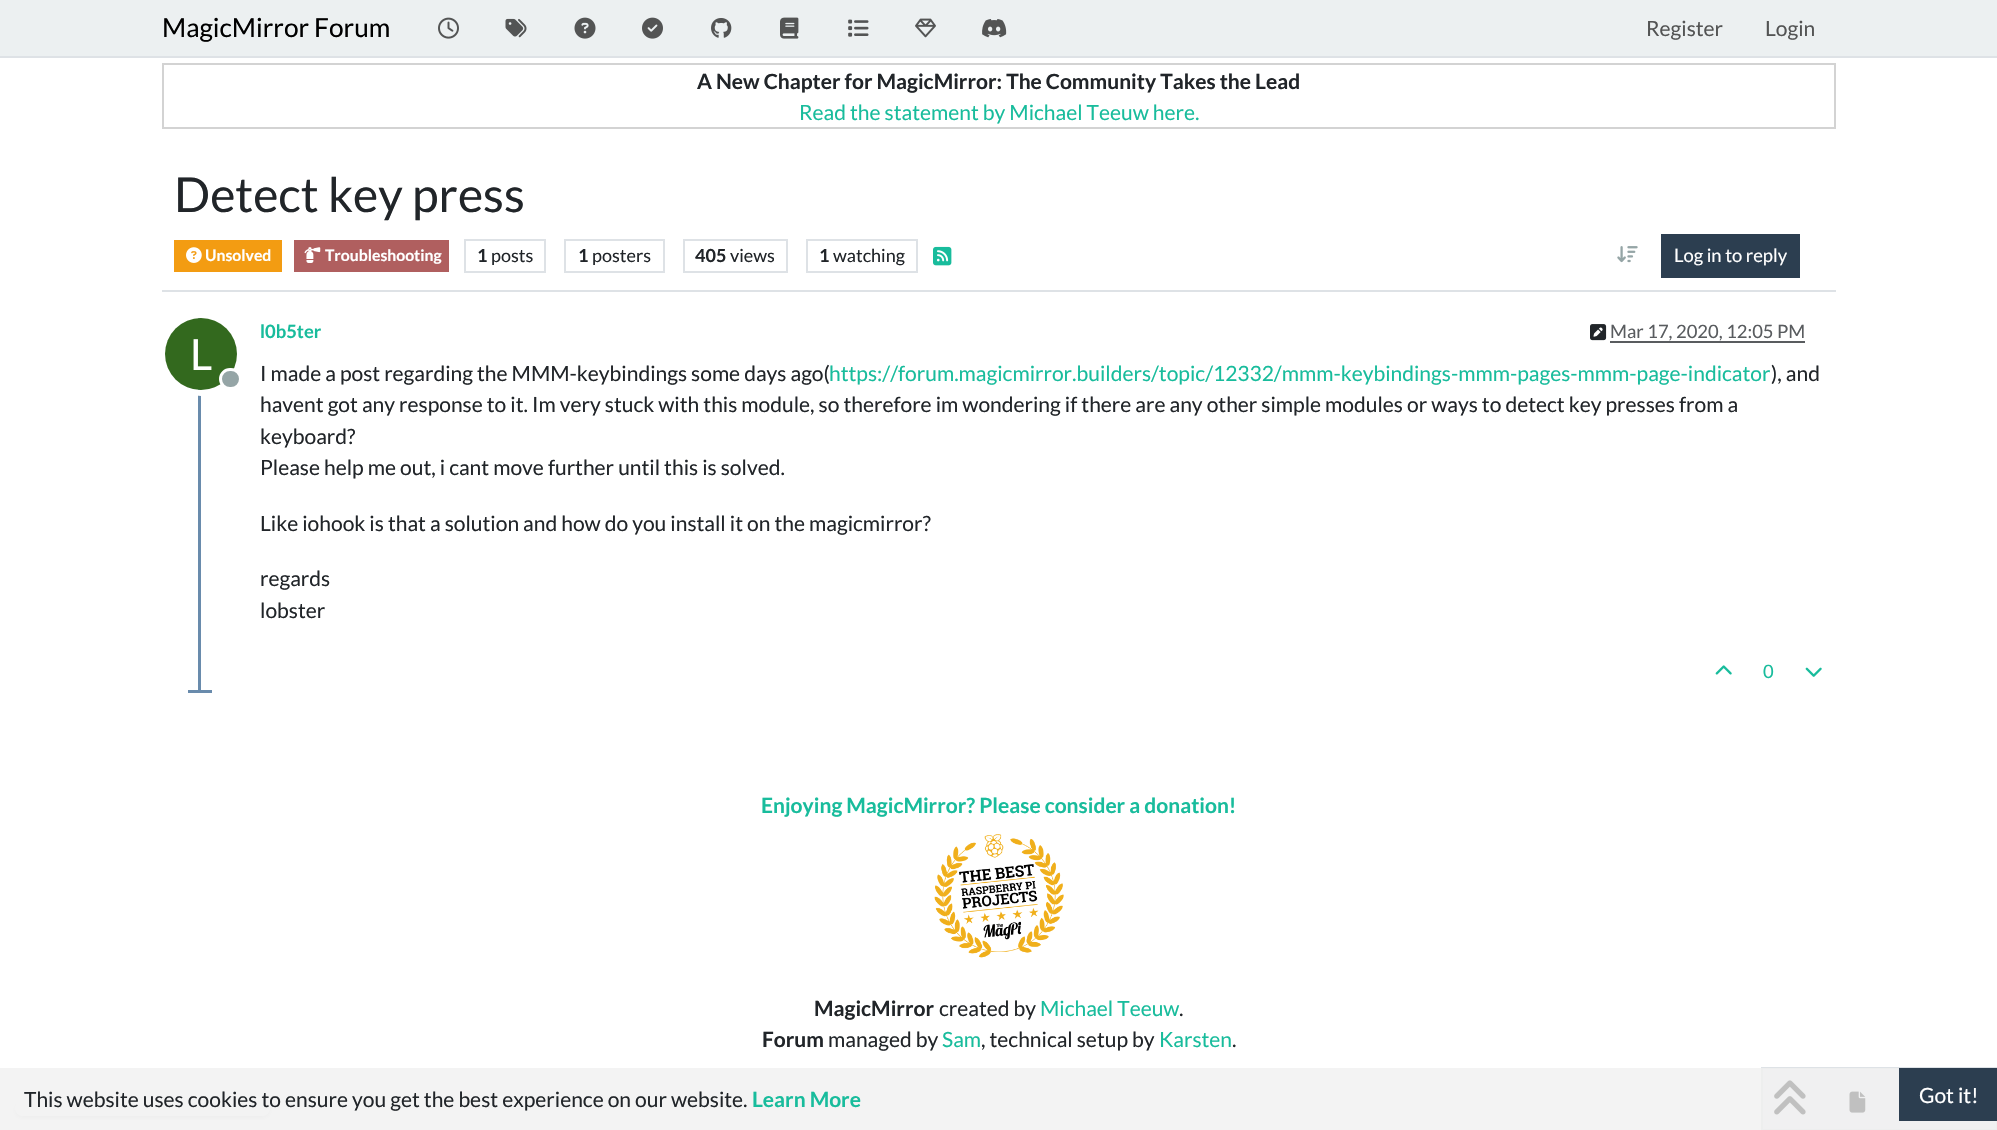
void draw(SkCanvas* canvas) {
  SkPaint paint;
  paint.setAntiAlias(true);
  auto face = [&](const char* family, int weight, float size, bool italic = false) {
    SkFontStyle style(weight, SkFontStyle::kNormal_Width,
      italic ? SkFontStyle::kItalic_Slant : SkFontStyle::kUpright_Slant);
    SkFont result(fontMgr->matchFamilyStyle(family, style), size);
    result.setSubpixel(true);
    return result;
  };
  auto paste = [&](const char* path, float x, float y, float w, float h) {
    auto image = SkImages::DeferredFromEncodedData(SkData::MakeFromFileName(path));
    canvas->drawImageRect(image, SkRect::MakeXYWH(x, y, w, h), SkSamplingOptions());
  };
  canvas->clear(0xffffffff);
  paint.setColor(0xffecf0f1);
  canvas->drawRect(SkRect::MakeXYWH(0, 0, 1997, 56), paint);
  paint.setColor(0xffdee2e6);
  canvas->drawRect(SkRect::MakeXYWH(0, 56, 1997, 2), paint);
  paste("img/1.png", 438, 17, 21, 22);
  paste("img/2.png", 505, 18, 22, 20);
  paste("img/3.png", 574, 17, 22, 22);
  paste("img/4.png", 642, 17, 21, 22);
  paste("img/5.png", 711, 18, 21, 20);
  paste("img/6.png", 780, 17, 19, 22);
  paste("img/7.png", 848, 19, 21, 18);
  paste("img/8.png", 915, 18, 21, 20);
  paste("img/9.png", 982, 19, 25, 19);
  paint.setStroke(true);
  paint.setStrokeWidth(2);
  paint.setColor(0xffd3d3d3);
  canvas->drawRect(SkRect::MakeXYWH(163, 64, 1672, 64), paint);
  paint.setStroke(false);
  paint.setColor(0xffdee2e6);
  canvas->drawRect(SkRect::MakeXYWH(162, 290, 1674, 2), paint);
  paint.setColor(0xfff39c12);
  canvas->drawRect(SkRect::MakeXYWH(174, 240, 108, 32), paint);
  paste("img/10.png", 186, 247, 16, 16);
  paint.setColor(0xffb05f5f);
  canvas->drawRect(SkRect::MakeXYWH(294, 240, 155, 32), paint);
  paste("img/11.png", 304, 247, 17, 16);
  paint.setStroke(true);
  paint.setColor(0xffdee2e6);
  canvas->drawRect(SkRect::MakeXYWH(465, 240, 80, 32), paint);
  canvas->drawRect(SkRect::MakeXYWH(565, 240, 99, 32), paint);
  canvas->drawRect(SkRect::MakeXYWH(684, 240, 103, 32), paint);
  canvas->drawRect(SkRect::MakeXYWH(807, 240, 110, 32), paint);
  paste("img/12.png", 933, 246, 19, 20);
  paste("img/13.png", 1617, 246, 21, 17);
  paint.setStroke(false);
  paint.setColor(0xff2c3e50);
  canvas->drawRect(SkRect::MakeXYWH(1661, 234, 139, 44), paint);
  paint.setColor(0xff698bac);
  canvas->drawRect(SkRect::MakeXYWH(198, 315, 3, 378), paint);
  paste("img/14.png", 1590, 324, 17, 17);
  paint.setColor(0xff595c5f);
  canvas->drawRect(SkRect::MakeXYWH(1610, 341, 195, 2), paint);
  paint.setStroke(true);
  paint.setStrokeWidth(6);
  paint.setColor(0xffffffff);
  canvas->drawCircle(201, 354, 39, paint);
  paint.setStroke(false);
  paint.setColor(0xff33691e);
  canvas->drawCircle(201, 354, 36, paint);
  paint.setColor(0xff95a5a6);
  canvas->drawRoundRect(SkRect::MakeXYWH(220.5f, 369.5f, 20, 19), 9.5f, 9.5f, paint);
  paint.setStroke(true);
  paint.setStrokeWidth(3);
  paint.setColor(0xffffffff);
  canvas->drawRoundRect(SkRect::MakeXYWH(220.5f, 369.5f, 20, 19), 9.5f, 9.5f, paint);
  paste("img/15.png", 1715, 665, 17, 10);
  paste("img/16.png", 1805, 667, 17, 10);
  paint.setStroke(false);
  paint.setColor(0xff698bac);
  canvas->drawRect(SkRect::MakeXYWH(188, 690, 24, 3), paint);
  paint.setColor(0xffecf0f1);
  canvas->drawRect(SkRect::MakeXYWH(1762, 1068, 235, 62), paint);
  paint.setStroke(true);
  paint.setStrokeWidth(2);
  paint.setColor(0xffdee2e6);
  canvas->drawRect(SkRect::MakeXYWH(1762, 1068, 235, 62), paint);
  paste("img/17.png", 1774, 1080, 32, 35);
  paste("img/18.png", 1849, 1091, 17, 22);
  paste("img/19.png", 934, 834, 130, 124);
  paint.setStroke(false);
  paint.setColor(0x1a000000);
  paint.setMaskFilter(SkMaskFilter::MakeBlur(kNormal_SkBlurStyle, 2));
  canvas->drawRoundRect(SkRect::MakeXYWH(15, 1103, 255, 15), 7.5f, 7.5f, paint);
  paint.setMaskFilter(nullptr);
  paint.setColor(0xffffffff);
  canvas->drawRoundRect(SkRect::MakeXYWH(15, 1101, 255, 15), 7.5f, 7.5f, paint);
  paint.setColor(0xccf0f0f0);
  canvas->drawRect(SkRect::MakeXYWH(0, 1068, 1997, 62), paint);
  paint.setColor(0xff2c3e50);
  canvas->drawRect(SkRect::MakeXYWH(1899, 1068, 98, 53), paint);
  auto f0 = face("Lato", 400, 26.25f);
  paint.setColor(0xff000000);
  canvas->drawString("MagicMirror Forum", 162, 37, f0, paint);
  auto f1 = face("Lato", 400, 21);
  paint.setColor(0xff535454);
  canvas->drawString("Register", 1646, 36, f1, paint);
  canvas->drawString("Login", 1765, 36, f1, paint);
  auto f2 = face("Lato", 700, 21);
  paint.setColor(0xff212529);
  canvas->drawString("A New Chapter for MagicMirror: The Community Takes the Lead", 697, 89, f2, paint);
  paint.setColor(0xff18bc9c);
  canvas->drawString("Read the statement by Michael Teeuw here.", 799, 120, f1, paint);
  auto f3 = face("Lato", 400, 48);
  paint.setColor(0xff212529);
  canvas->drawString("Detect key press", 174, 212, f3, paint);
  auto f4 = face("Lato", 700, 15.75f);
  paint.setColor(0xffffffff);
  canvas->drawString("Unsolved", 205, 261, f4, paint);
  canvas->drawString("Troubleshooting", 325, 261, f4, paint);
  auto f5 = face("Lato", 700, 18);
  paint.setColor(0xff212529);
  canvas->drawString("1", 477, 262, f5, paint);
  auto f6 = face("Lato", 400, 18);
  canvas->drawString("posts", 491, 262, f6, paint);
  canvas->drawString("1", 578, 262, f5, paint);
  canvas->drawString("posters", 592, 262, f6, paint);
  canvas->drawString("405", 695, 262, f5, paint);
  canvas->drawString("views", 730, 262, f6, paint);
  canvas->drawString("1", 819, 262, f5, paint);
  canvas->drawString("watching", 833, 262, f6, paint);
  auto f7 = face("Lato", 400, 18.4f);
  paint.setColor(0xffffffff);
  canvas->drawString("Log in to reply", 1674, 262, f7, paint);
  auto f8 = face("Lato", 700, 18.4f);
  paint.setColor(0xff18bc9c);
  canvas->drawString("l0b5ter", 260, 338, f8, paint);
  paint.setColor(0xff595c5f);
  canvas->drawString("Mar 17, 2020, 12:05 PM", 1610, 338, f7, paint);
  auto f9 = face("Lato", 400, 43);
  paint.setColor(0xffffffff);
  canvas->drawString("L", 190, 370, f9, paint);
  paint.setColor(0xff212529);
  canvas->drawString("I made a post regarding the MMM-keybindings some days ago(", 260, 381, f1, paint);
  paint.setColor(0xff18bc9c);
  canvas->drawString("https://forum.magicmirror.builders/topic/12332/mmm-keybindings-mmm-pages-mmm-page-indicator", 829, 381, f1, paint);
  paint.setColor(0xff212529);
  {
    const struct { const char* s; float x, y; } items[] = {
      {"), and", 1771, 381},
      {"havent got any response to it. Im very stuck with this module, so therefore im wondering if there are any other simple modules or ways to detect key presses from a", 260, 412},
      {"keyboard?", 260, 444},
      {"Please help me out, i cant move further until this is solved.", 260, 475},
      {"Like iohook is that a solution and how do you install it on the magicmirror?", 260, 531},
      {"regards", 260, 586},
      {"lobster", 260, 618},
    };
    for (auto [s, x, y] : items) {
      canvas->drawString(s, x, y, f1, paint);
    }
  }
  paint.setColor(0xff18bc9c);
  canvas->drawString("0", 1763, 678, f7, paint);
  canvas->drawString("Enjoying MagicMirror? Please consider a donation!", 761, 813, f2, paint);
  paint.setColor(0xff212529);
  canvas->drawString("MagicMirror", 814, 1016, f2, paint);
  canvas->drawString("created by", 939, 1016, f1, paint);
  paint.setColor(0xff18bc9c);
  canvas->drawString("Michael Teeuw", 1040, 1016, f1, paint);
  paint.setColor(0xff212529);
  canvas->drawString(".", 1179, 1016, f1, paint);
  canvas->drawString("Forum", 762, 1047, f2, paint);
  canvas->drawString("managed by", 828, 1047, f1, paint);
  paint.setColor(0xff18bc9c);
  canvas->drawString("Sam", 942, 1047, f1, paint);
  paint.setColor(0xff212529);
  canvas->drawString(", technical setup by", 981, 1047, f1, paint);
  paint.setColor(0xff18bc9c);
  canvas->drawString("Karsten", 1159, 1047, f1, paint);
  paint.setColor(0xff212529);
  canvas->drawString(".", 1232, 1047, f1, paint);
  canvas->drawString("This website uses cookies to ensure you get the best experience on our website.", 24, 1107, f1, paint);
  paint.setColor(0xff18bc9c);
  canvas->drawString("Learn More", 752, 1107, f2, paint);
  paint.setColor(0xffffffff);
  canvas->drawString("Got it!", 1919, 1103, f1, paint);
}
